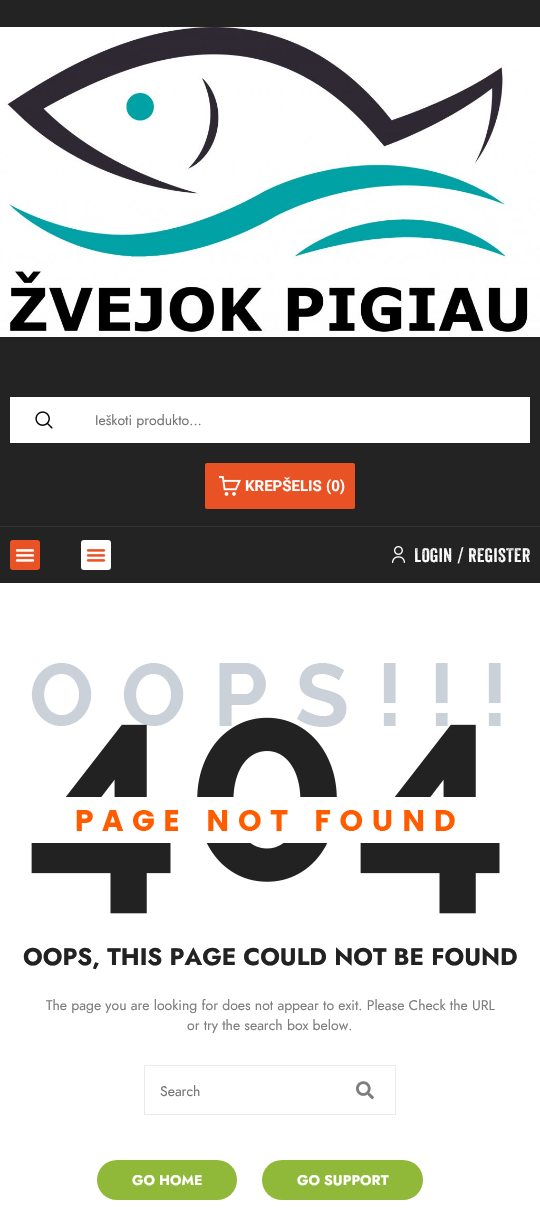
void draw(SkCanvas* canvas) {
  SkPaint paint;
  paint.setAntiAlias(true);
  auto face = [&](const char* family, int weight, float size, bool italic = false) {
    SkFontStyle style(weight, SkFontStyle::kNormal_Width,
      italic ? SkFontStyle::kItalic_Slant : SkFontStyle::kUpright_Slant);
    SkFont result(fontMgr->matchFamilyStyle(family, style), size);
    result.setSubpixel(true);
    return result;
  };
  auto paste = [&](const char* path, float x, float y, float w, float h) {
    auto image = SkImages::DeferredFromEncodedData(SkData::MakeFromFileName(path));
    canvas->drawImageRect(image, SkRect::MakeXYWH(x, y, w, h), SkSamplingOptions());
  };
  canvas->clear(0xffffffff);
  paint.setColor(0xff232323);
  canvas->drawRect(SkRect::MakeXYWH(0, 0, 540, 583), paint);
  paint.setColor(0xff333333);
  canvas->drawRect(SkRect::MakeXYWH(0, 526, 540, 1), paint);
  paste("img/1.png", 0, 27, 540, 310);
  paint.setColor(0xffffffff);
  canvas->drawRect(SkRect::MakeXYWH(10, 397, 520, 46), paint);
  paste("img/2.png", 35, 411, 18, 18);
  paint.setColor(0xffe95224);
  canvas->drawRoundRect(SkRect::MakeXYWH(205, 463, 150, 46), 2, 2, paint);
  paste("img/3.png", 219, 476, 22, 20);
  canvas->drawRoundRect(SkRect::MakeXYWH(10, 540, 30, 30), 3, 3, paint);
  paste("img/4.png", 15, 549, 20, 13);
  paint.setColor(0xffffffff);
  canvas->drawRoundRect(SkRect::MakeXYWH(81, 540, 30, 30), 3, 3, paint);
  paste("img/5.png", 86, 549, 20, 13);
  paste("img/6.png", 392, 546, 13, 17);
  paste("img/7.png", 31, 663, 470, 251);
  paint.setStroke(true);
  paint.setStrokeWidth(1);
  paint.setColor(0xffebebeb);
  canvas->drawRect(SkRect::MakeXYWH(144.5f, 1065.5f, 251, 49), paint);
  paste("img/8.png", 356, 1081, 18, 19);
  paint.setStroke(false);
  paint.setColor(0xff90b939);
  canvas->drawRoundRect(SkRect::MakeXYWH(97, 1160, 140, 40), 20, 20, paint);
  canvas->drawRoundRect(SkRect::MakeXYWH(262, 1160, 161, 40), 20, 20, paint);
  auto f0 = face("Jost", 400, 14);
  paint.setColor(0xff757575);
  canvas->drawString("Ieškoti produkto...", 95, 425, f0, paint);
  auto f1 = face("Roboto", 700, 15);
  paint.setColor(0xffffffff);
  canvas->drawString("KREPŠELIS", 245, 491, f1, paint);
  canvas->drawString("(0)", 326, 491, f1, paint);
  auto f2 = face("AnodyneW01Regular", 400, 19);
  {
    const struct { const char* s; float x, y; } items[] = {
      {"LOGIN", 414, 562},
      {"/", 458, 562},
      {"REGISTER", 468, 562},
    };
    for (auto [s, x, y] : items) {
      canvas->drawString(s, x, y, f2, paint);
    }
  }
  auto f3 = face("Jost", 700, 24);
  paint.setColor(0xff222222);
  canvas->drawString("OOPS, THIS PAGE COULD NOT BE FOUND", 23, 965, f3, paint);
  paint.setColor(0xff7d7d7d);
  canvas->drawString("The page you are looking for does not appear to exit. Please Check the URL", 46, 1010, f0, paint);
  canvas->drawString("or try the search box below.", 187, 1030, f0, paint);
  paint.setColor(0xff757575);
  canvas->drawString("Search", 160, 1096, f0, paint);
  auto f4 = face("Jost", 700, 14);
  paint.setColor(0xffffffff);
  canvas->drawString("GO HOME", 132, 1185, f4, paint);
  canvas->drawString("GO SUPPORT", 297, 1185, f4, paint);
}
